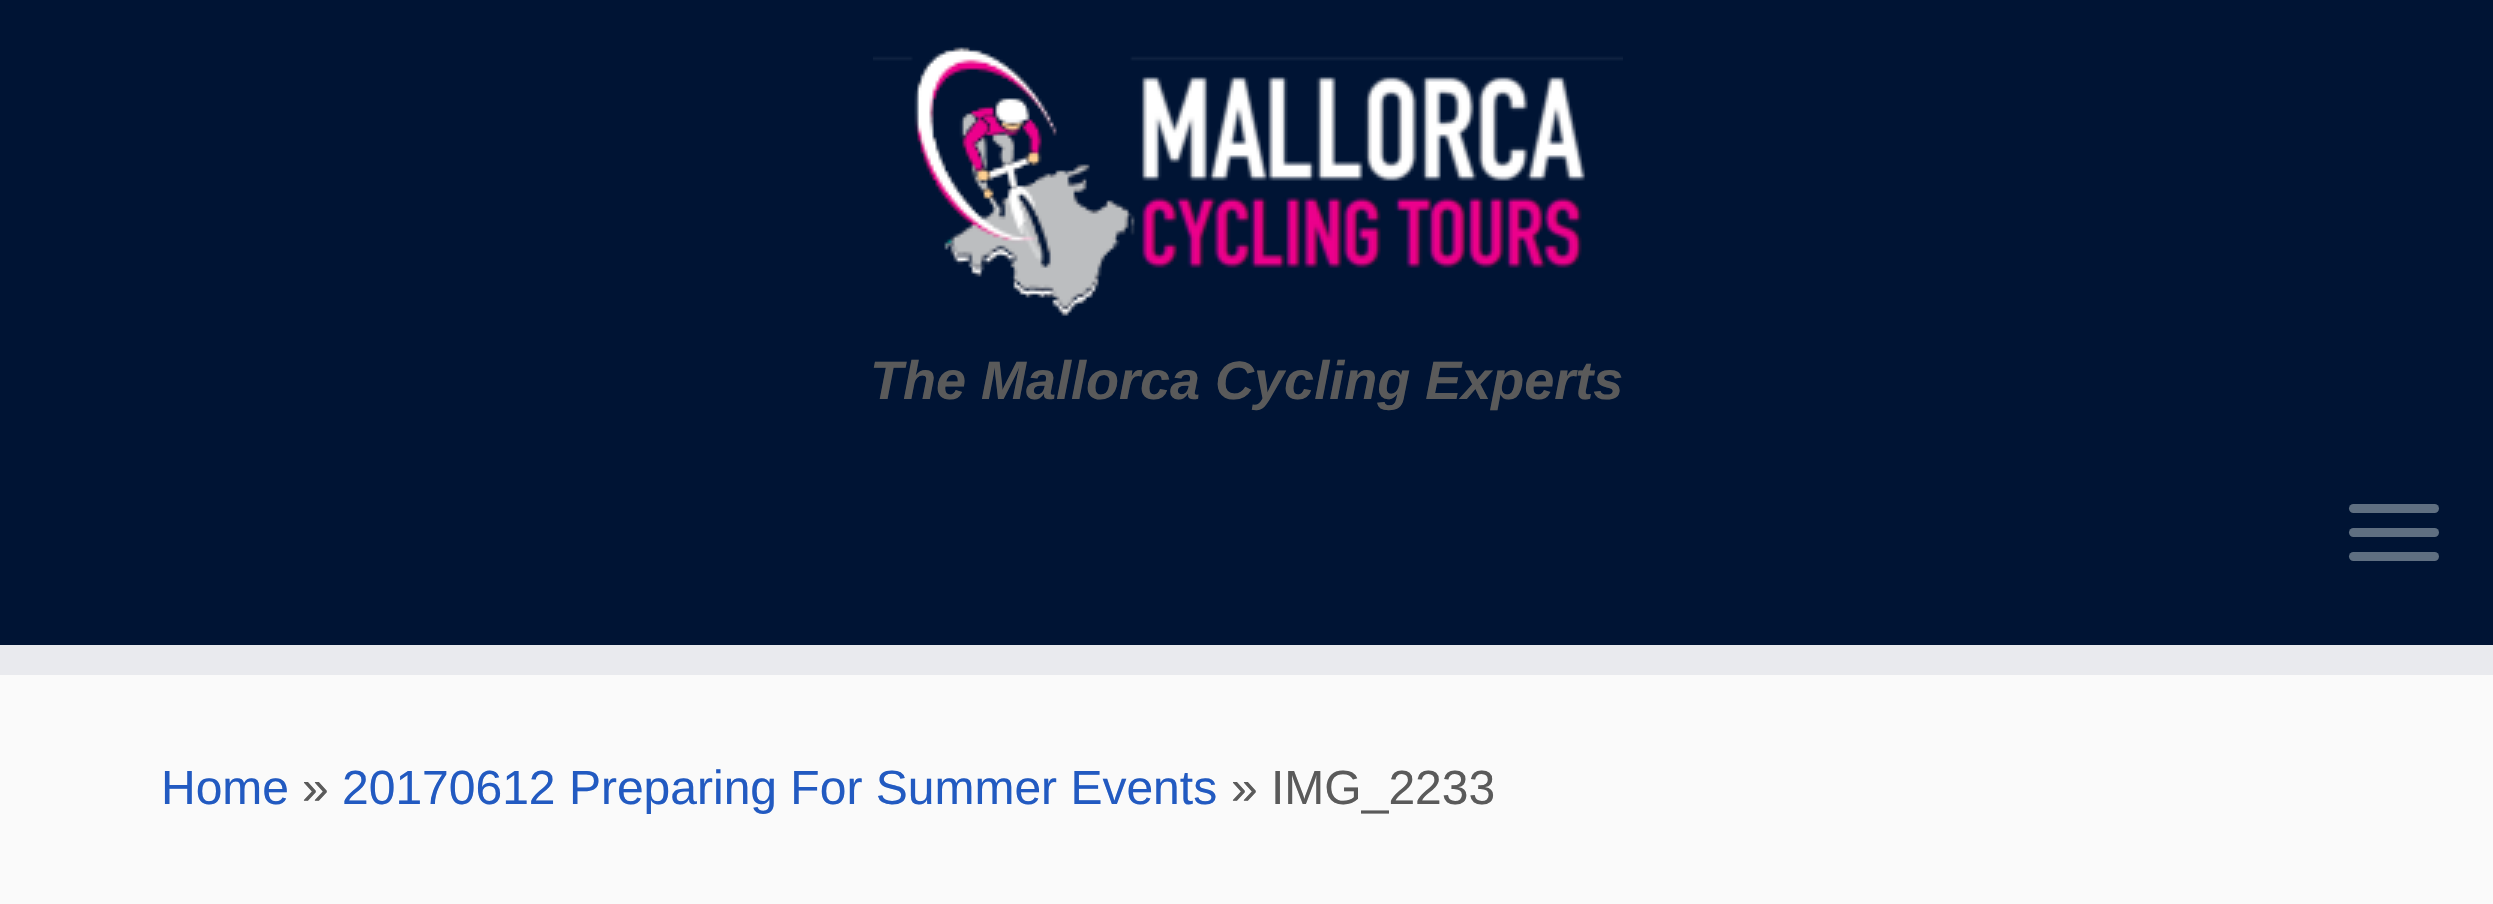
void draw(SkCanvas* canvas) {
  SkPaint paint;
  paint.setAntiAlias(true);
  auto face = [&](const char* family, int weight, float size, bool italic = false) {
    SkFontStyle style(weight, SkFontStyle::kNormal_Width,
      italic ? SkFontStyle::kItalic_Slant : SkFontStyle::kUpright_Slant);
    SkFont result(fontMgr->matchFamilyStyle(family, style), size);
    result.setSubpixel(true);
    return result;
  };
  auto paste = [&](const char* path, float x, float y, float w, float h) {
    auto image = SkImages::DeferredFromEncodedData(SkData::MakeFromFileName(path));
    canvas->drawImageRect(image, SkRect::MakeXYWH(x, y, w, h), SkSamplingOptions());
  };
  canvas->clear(0xfffafafa);
  paint.setColor(0xff001434);
  canvas->drawRect(SkRect::MakeXYWH(0, 0, 2493, 645), paint);
  paint.setColor(0xffe9eaee);
  canvas->drawRect(SkRect::MakeXYWH(0, 645, 2493, 30), paint);
  paste("img/1.png", 873, 47, 750, 269);
  paint.setColor(0xff5f6f81);
  canvas->drawRoundRect(SkRect::MakeXYWH(2349, 504, 90, 9), 4.5f, 4.5f, paint);
  canvas->drawRoundRect(SkRect::MakeXYWH(2349, 528, 90, 9), 4.5f, 4.5f, paint);
  canvas->drawRoundRect(SkRect::MakeXYWH(2349, 552, 90, 9), 4.5f, 4.5f, paint);
  auto f0 = face("Liberation Sans", 700, 54, true);
  paint.setColor(0xff5a5a5a);
  canvas->drawString("The Mallorca Cycling Experts", 870, 399, f0, paint);
  auto f1 = face("Liberation Sans", 400, 48);
  paint.setColor(0xff225ac1);
  canvas->drawString("Home", 161, 804, f1, paint);
  paint.setColor(0xff5a5a5a);
  canvas->drawString("»", 302, 804, f1, paint);
  paint.setColor(0xff225ac1);
  canvas->drawString("20170612 Preparing For Summer Events", 342, 804, f1, paint);
  paint.setColor(0xff5a5a5a);
  canvas->drawString("» IMG_2233", 1231, 804, f1, paint);
}
